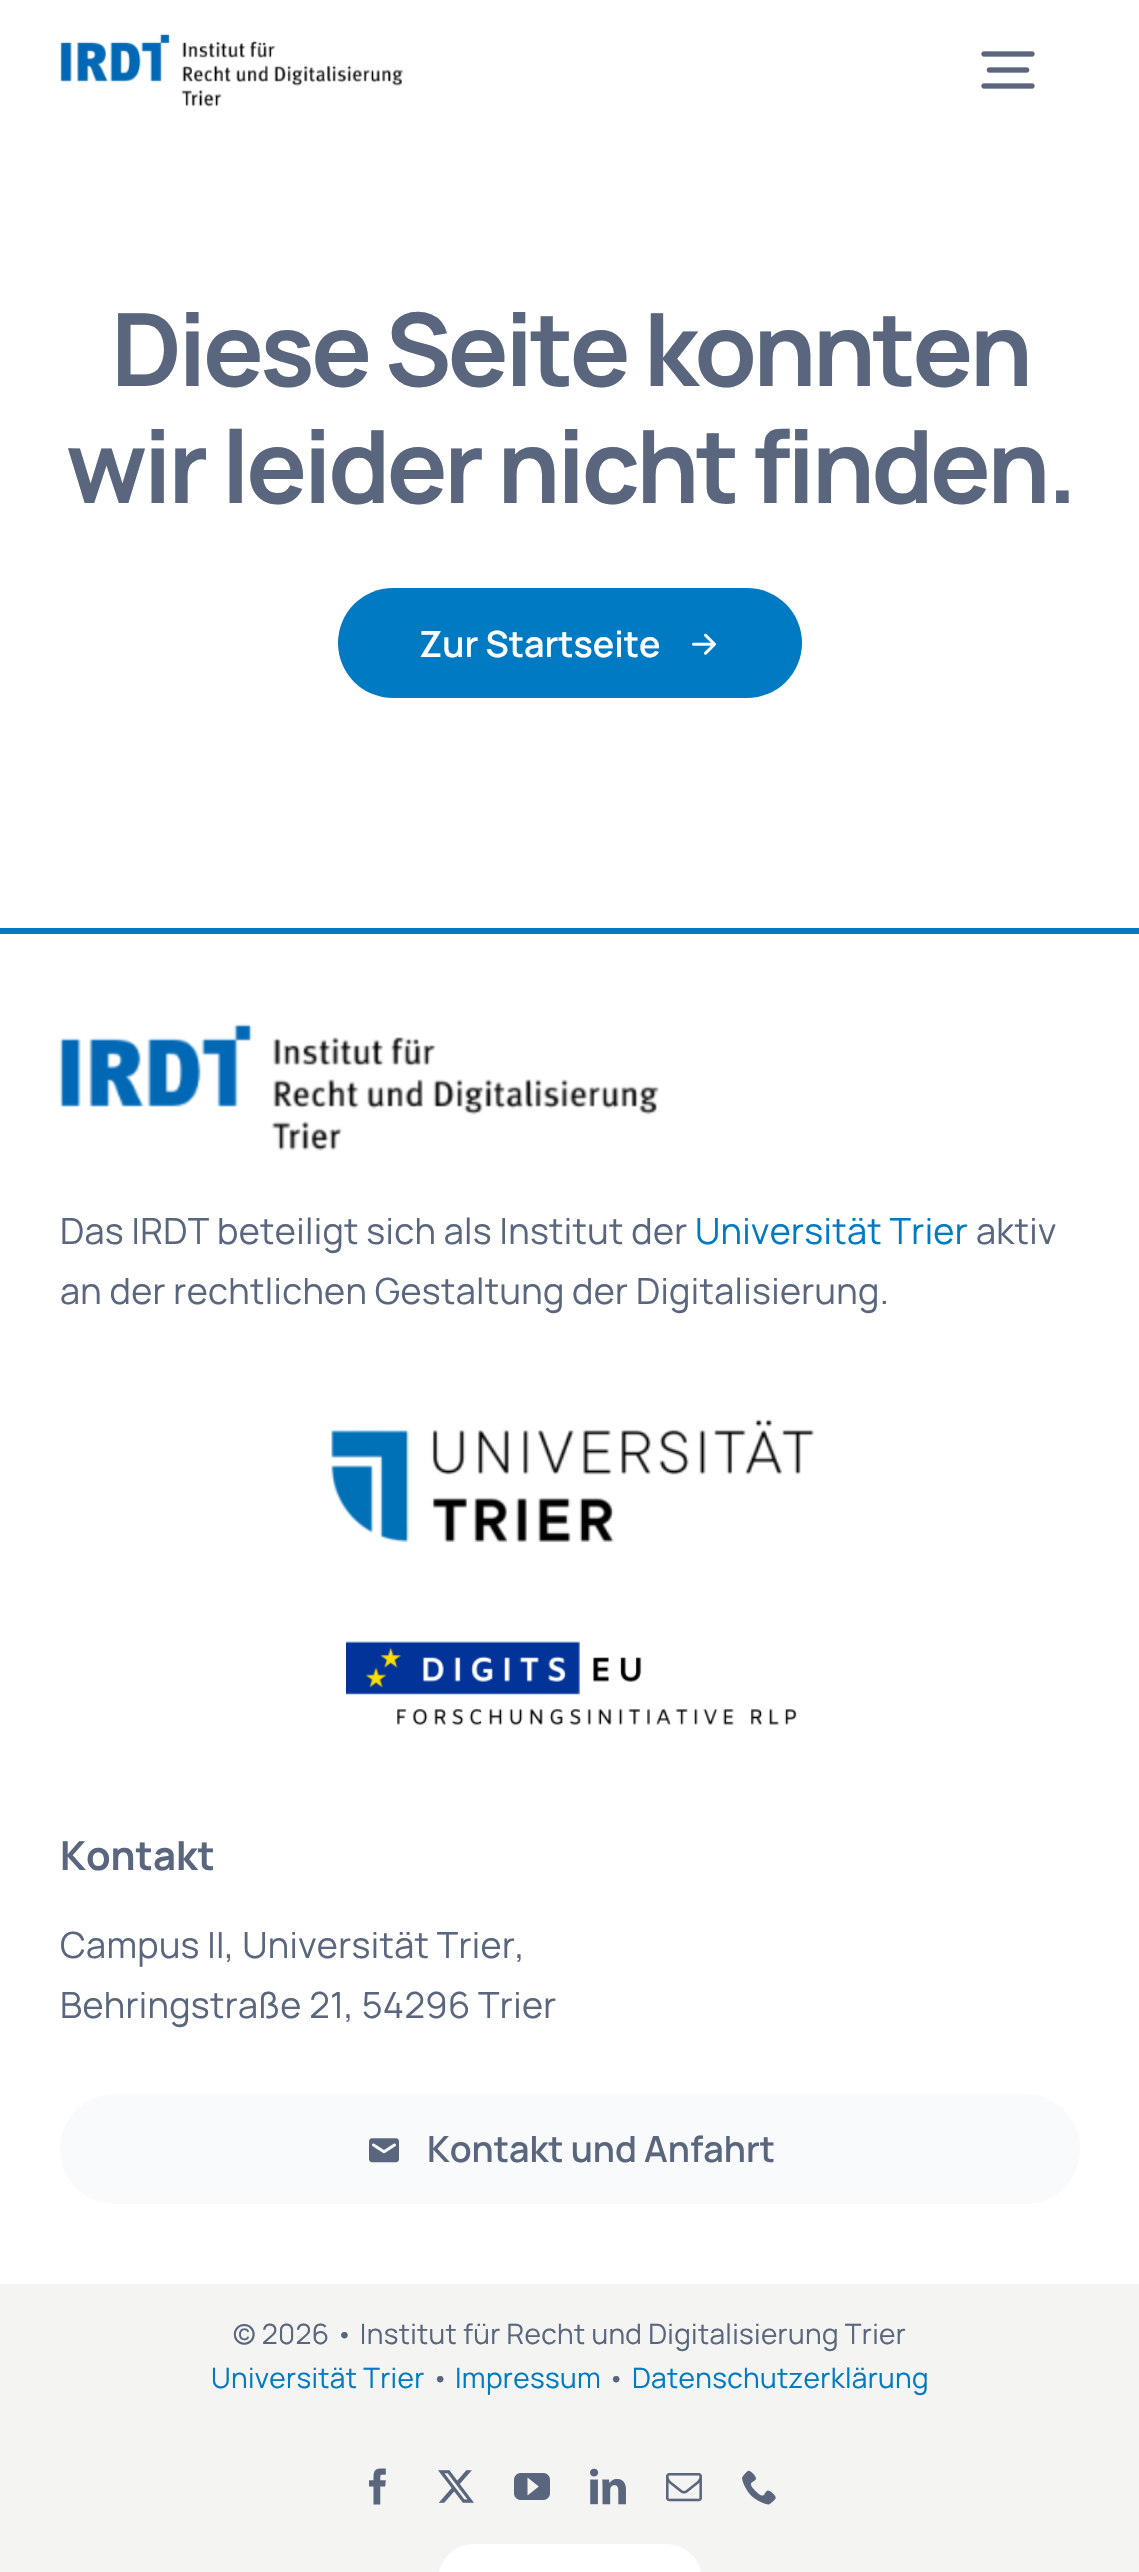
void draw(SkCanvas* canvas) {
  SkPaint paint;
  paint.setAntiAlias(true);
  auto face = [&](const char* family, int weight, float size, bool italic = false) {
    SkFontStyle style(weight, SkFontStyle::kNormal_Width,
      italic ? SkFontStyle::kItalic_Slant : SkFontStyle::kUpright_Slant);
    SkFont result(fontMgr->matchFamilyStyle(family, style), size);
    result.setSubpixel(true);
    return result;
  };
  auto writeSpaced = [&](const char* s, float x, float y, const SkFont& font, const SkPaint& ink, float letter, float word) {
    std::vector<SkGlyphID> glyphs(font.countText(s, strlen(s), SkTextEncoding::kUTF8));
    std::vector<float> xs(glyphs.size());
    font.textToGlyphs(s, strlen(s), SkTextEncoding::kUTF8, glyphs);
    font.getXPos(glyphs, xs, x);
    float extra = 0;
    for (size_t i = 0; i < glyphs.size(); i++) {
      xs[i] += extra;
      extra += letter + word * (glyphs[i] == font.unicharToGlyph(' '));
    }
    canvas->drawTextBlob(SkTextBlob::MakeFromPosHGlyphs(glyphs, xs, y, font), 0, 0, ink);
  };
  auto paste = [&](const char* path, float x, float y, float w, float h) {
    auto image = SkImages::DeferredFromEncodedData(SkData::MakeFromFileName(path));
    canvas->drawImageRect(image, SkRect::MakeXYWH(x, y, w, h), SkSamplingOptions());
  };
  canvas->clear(0xffffffff);
  paste("img/1.png", 60, 33, 343, 74);
  paste("img/2.png", 981, 51, 54, 38);
  paint.setColor(0xff007ac3);
  canvas->drawRoundRect(SkRect::MakeXYWH(338, 588, 464, 110), 55, 55, paint);
  paste("img/3.png", 692, 633, 24, 22);
  canvas->drawRect(SkRect::MakeXYWH(0, 928, 1139, 6), paint);
  paste("img/4.png", 60, 1023, 599, 128);
  paste("img/5.png", 331, 1419, 483, 124);
  paste("img/6.png", 346, 1641, 451, 84);
  paint.setColor(0xfff9fafb);
  canvas->drawRoundRect(SkRect::MakeXYWH(60, 2094, 1020, 110), 55, 55, paint);
  paste("img/7.png", 369, 2138, 30, 25);
  paint.setColor(0xfff4f4f2);
  canvas->drawRect(SkRect::MakeXYWH(0, 2284, 1139, 288), paint);
  paste("img/8.png", 369, 2468, 17, 37);
  paste("img/9.png", 438, 2470, 36, 33);
  paste("img/10.png", 514, 2473, 36, 27);
  paste("img/11.png", 590, 2468, 36, 37);
  paste("img/12.png", 666, 2473, 36, 29);
  paste("img/13.png", 742, 2470, 34, 35);
  paint.setColor(0xffffffff);
  canvas->drawRoundRect(SkRect::MakeXYWH(438, 2544, 264, 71), 43, 43, paint);
  auto f0 = face("Manrope", 700, 101);
  paint.setColor(0xff59667d);
  writeSpaced("Diese Seite konnten", 111, 386, f0, paint, -3.6f, 0);
  writeSpaced("wir leider nicht finden.", 66, 503, f0, paint, -3.6f, 0);
  auto f1 = face("Manrope", 600, 36);
  paint.setColor(0xffffffff);
  canvas->drawString("Zur Startseite", 419, 657, f1, paint);
  auto f2 = face("Manrope", 400, 36);
  paint.setColor(0xff59667d);
  writeSpaced("Das IRDT beteiligt sich als Institut der", 60, 1244, f2, paint, 0.32f, 0);
  paint.setColor(0xff007ac3);
  writeSpaced("Universität Trier", 695, 1244, f2, paint, 0.32f, 0);
  paint.setColor(0xff59667d);
  writeSpaced("aktiv", 976, 1244, f2, paint, 0.32f, 0);
  writeSpaced("an der rechtlichen Gestaltung der Digitalisierung.", 60, 1304, f2, paint, 0.32f, 0);
  auto f3 = face("Manrope", 700, 40);
  canvas->drawString("Kontakt", 60, 1870, f3, paint);
  writeSpaced("Campus II, Universität Trier,", 60, 1958, f2, paint, 0.32f, 0);
  writeSpaced("Behringstraße 21, 54296 Trier", 60, 2018, f2, paint, 0.32f, 0);
  canvas->drawString("Kontakt und Anfahrt", 427, 2162, f1, paint);
  auto f4 = face("Manrope", 400, 28);
  writeSpaced("© 2026 • Institut für Recht und Digitalisierung Trier", 233, 2344, f4, paint, 0.32f, 0);
  paint.setColor(0xff007ac3);
  writeSpaced("Universität Trier", 211, 2388, f4, paint, 0.32f, 0);
  paint.setColor(0xff59667d);
  writeSpaced("•", 431, 2388, f4, paint, 0.32f, 0);
  paint.setColor(0xff007ac3);
  writeSpaced("Impressum", 455, 2388, f4, paint, 0.32f, 0);
  paint.setColor(0xff59667d);
  writeSpaced("•", 607, 2388, f4, paint, 0.32f, 0);
  paint.setColor(0xff007ac3);
  writeSpaced("Datenschutzerklärung", 632, 2388, f4, paint, 0.32f, 0);
}
